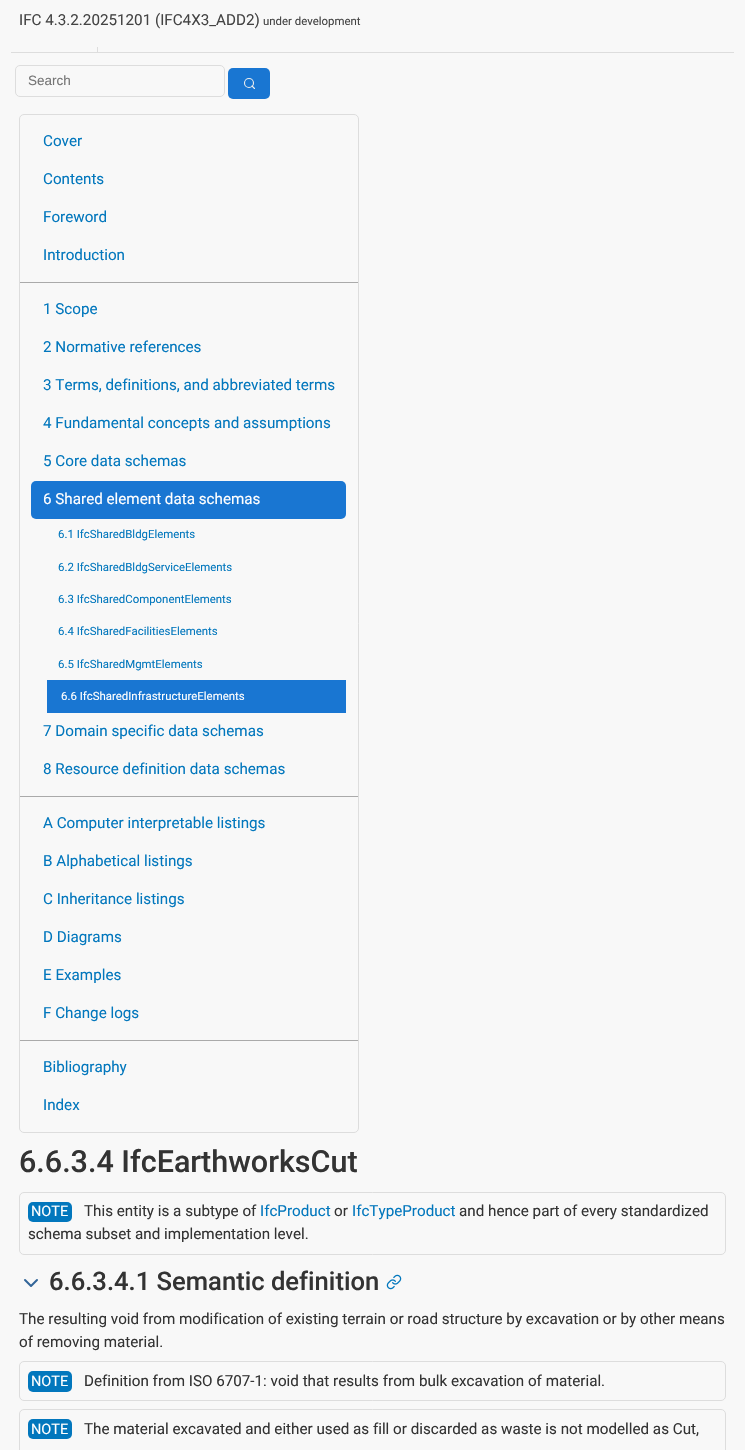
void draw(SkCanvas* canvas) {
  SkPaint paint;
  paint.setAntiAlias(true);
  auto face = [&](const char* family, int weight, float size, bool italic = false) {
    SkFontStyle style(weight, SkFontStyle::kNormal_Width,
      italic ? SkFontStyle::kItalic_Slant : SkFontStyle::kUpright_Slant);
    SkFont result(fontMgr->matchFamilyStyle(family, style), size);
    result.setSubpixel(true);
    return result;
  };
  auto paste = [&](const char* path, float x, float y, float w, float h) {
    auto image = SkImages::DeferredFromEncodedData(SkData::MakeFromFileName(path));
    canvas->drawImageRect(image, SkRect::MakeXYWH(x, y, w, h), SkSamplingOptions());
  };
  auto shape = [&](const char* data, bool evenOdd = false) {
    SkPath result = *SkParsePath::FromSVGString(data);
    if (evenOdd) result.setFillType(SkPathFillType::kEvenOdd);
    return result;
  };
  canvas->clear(0xfff8f8f8);
  paint.setColor(0xffdddddd);
  canvas->drawRect(SkRect::MakeXYWH(11, 52, 723, 1), paint);
  canvas->drawRect(SkRect::MakeXYWH(97, 47, 1, 5), paint);
  paint.setStroke(true);
  paint.setStrokeWidth(1);
  canvas->drawRoundRect(SkRect::MakeXYWH(15.5f, 65.5f, 209, 31), 4.5f, 4.5f, paint);
  paint.setStroke(false);
  paint.setColor(0xff1976d2);
  canvas->drawRoundRect(SkRect::MakeXYWH(228, 68, 42, 31), 5, 5, paint);
  paint.setStroke(true);
  paint.setStrokeWidth(1.1f);
  paint.setColor(0xffeeeeee);
  canvas->drawCircle(249, 83, 4.5f, paint);
  paint.setStrokeCap(SkPaint::kRound_Cap);
  paint.setStrokeJoin(SkPaint::kRound_Join);
  canvas->drawPath(shape("M254.5 88.5L252 86"), paint);
  paint.setStrokeWidth(1);
  paint.setStrokeCap(SkPaint::kButt_Cap);
  paint.setStrokeJoin(SkPaint::kMiter_Join);
  paint.setColor(0xffdddddd);
  canvas->drawRoundRect(SkRect::MakeXYWH(19.5f, 114.5f, 339, 1018), 4.5f, 4.5f, paint);
  paint.setStroke(false);
  paint.setColor(0xffaaaaaa);
  canvas->drawRect(SkRect::MakeXYWH(20, 282, 338, 1), paint);
  canvas->drawRect(SkRect::MakeXYWH(20, 796, 338, 1), paint);
  paint.setColor(0xff1976d2);
  canvas->drawRoundRect(SkRect::MakeXYWH(31, 481, 315, 38), 5, 5, paint);
  canvas->drawRect(SkRect::MakeXYWH(47, 680, 299, 33), paint);
  paint.setColor(0xffaaaaaa);
  canvas->drawRect(SkRect::MakeXYWH(20, 1040, 338, 1), paint);
  paint.setStroke(true);
  paint.setColor(0xffdddddd);
  canvas->drawRoundRect(SkRect::MakeXYWH(19.5f, 1192.5f, 706, 62), 4.5f, 4.5f, paint);
  paint.setStroke(false);
  paint.setColor(0xff0277bd);
  canvas->drawRoundRect(SkRect::MakeXYWH(28, 1202, 44, 20), 5, 5, paint);
  paint.setStroke(true);
  paint.setStrokeWidth(2);
  paint.setStrokeCap(SkPaint::kRound_Cap);
  paint.setStrokeJoin(SkPaint::kRound_Join);
  paint.setColor(0xff336699);
  canvas->drawPath(shape("M25 1280L31 1286L37 1280"), paint);
  paste("img/1.png", 386, 1274, 16, 16);
  paint.setStrokeWidth(1);
  paint.setStrokeCap(SkPaint::kButt_Cap);
  paint.setStrokeJoin(SkPaint::kMiter_Join);
  paint.setColor(0xffdddddd);
  canvas->drawRoundRect(SkRect::MakeXYWH(19.5f, 1361.5f, 706, 39), 4.5f, 4.5f, paint);
  paint.setStroke(false);
  paint.setColor(0xff0277bd);
  canvas->drawRoundRect(SkRect::MakeXYWH(28, 1371, 44, 21), 5, 5, paint);
  paint.setStroke(true);
  paint.setColor(0xffdddddd);
  canvas->drawRoundRect(SkRect::MakeXYWH(19.5f, 1409.5f, 706, 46), 4.5f, 4.5f, paint);
  paint.setStroke(false);
  paint.setColor(0xff0277bd);
  canvas->drawRoundRect(SkRect::MakeXYWH(28, 1419, 44, 20), 5, 5, paint);
  auto f0 = face("Roboto", 400, 15.2f);
  paint.setColor(0xff444444);
  canvas->drawString("IFC 4.3.2.20251201 (IFC4X3_ADD2)", 19, 25, f0, paint);
  auto f1 = face("Roboto", 400, 11.4f);
  canvas->drawString("under development", 263, 25, f1, paint);
  auto f2 = face("Liberation Sans", 400, 13.5f);
  paint.setColor(0xff757575);
  canvas->drawString("Search", 28, 85, f2, paint);
  paint.setColor(0xff0277bd);
  {
    const struct { const char* s; float x, y; } items[] = {
      {"Cover", 43, 146},
      {"Contents", 43, 184},
      {"Foreword", 43, 222},
      {"Introduction", 43, 260},
      {"1 Scope", 43, 314},
      {"2 Normative references", 43, 352},
      {"3 Terms, definitions, and abbreviated terms", 43, 390},
      {"4 Fundamental concepts and assumptions", 43, 428},
      {"5 Core data schemas", 43, 466},
    };
    for (auto [s, x, y] : items) {
      canvas->drawString(s, x, y, f0, paint);
    }
  }
  paint.setColor(0xffffffff);
  canvas->drawString("6 Shared element data schemas", 43, 504, f0, paint);
  paint.setColor(0xff0277bd);
  {
    const struct { const char* s; float x, y; } items[] = {
      {"6.1 IfcSharedBldgElements", 58, 538},
      {"6.2 IfcSharedBldgServiceElements", 58, 571},
      {"6.3 IfcSharedComponentElements", 58, 603},
      {"6.4 IfcSharedFacilitiesElements", 58, 635},
      {"6.5 IfcSharedMgmtElements", 58, 668},
    };
    for (auto [s, x, y] : items) {
      canvas->drawString(s, x, y, f1, paint);
    }
  }
  paint.setColor(0xffffffff);
  canvas->drawString("6.6 IfcSharedInfrastructureElements", 61, 700, f1, paint);
  paint.setColor(0xff0277bd);
  {
    const struct { const char* s; float x, y; } items[] = {
      {"7 Domain specific data schemas", 43, 736},
      {"8 Resource definition data schemas", 43, 774},
      {"A Computer interpretable listings", 43, 828},
      {"B Alphabetical listings", 43, 866},
      {"C Inheritance listings", 43, 904},
      {"D Diagrams", 43, 942},
      {"E Examples", 43, 980},
      {"F Change logs", 43, 1018},
      {"Bibliography", 43, 1072},
      {"Index", 43, 1110},
    };
    for (auto [s, x, y] : items) {
      canvas->drawString(s, x, y, f0, paint);
    }
  }
  auto f3 = face("Roboto", 500, 30.5f);
  paint.setColor(0xff333333);
  canvas->drawString("6.6.3.4 IfcEarthworksCut", 19, 1172, f3, paint);
  auto f4 = face("Roboto", 400, 14.5f);
  paint.setColor(0xffffffff);
  canvas->drawString("NOTE", 31, 1216, f4, paint);
  paint.setColor(0xff333333);
  canvas->drawString("This entity is a subtype of", 84, 1216, f0, paint);
  paint.setColor(0xff0277bd);
  canvas->drawString("IfcProduct", 260, 1216, f0, paint);
  paint.setColor(0xff333333);
  canvas->drawString("or", 334, 1216, f0, paint);
  paint.setColor(0xff0277bd);
  canvas->drawString("IfcTypeProduct", 352, 1216, f0, paint);
  paint.setColor(0xff333333);
  canvas->drawString("and hence part of every standardized", 459, 1216, f0, paint);
  canvas->drawString("schema subset and implementation level.", 28, 1239, f0, paint);
  auto f5 = face("Roboto", 500, 25.6f);
  canvas->drawString("6.6.3.4.1 Semantic definition", 49, 1290, f5, paint);
  canvas->drawString("The resulting void from modification of existing terrain or road structure by excavation or by other means", 19, 1324, f0, paint);
  canvas->drawString("of removing material.", 19, 1347, f0, paint);
  paint.setColor(0xffffffff);
  canvas->drawString("NOTE", 31, 1386, f4, paint);
  paint.setColor(0xff333333);
  canvas->drawString("Definition from ISO 6707-1: void that results from bulk excavation of material.", 84, 1386, f0, paint);
  paint.setColor(0xffffffff);
  canvas->drawString("NOTE", 31, 1434, f4, paint);
  paint.setColor(0xff333333);
  canvas->drawString("The material excavated and either used as fill or discarded as waste is not modelled as Cut,", 84, 1434, f0, paint);
}
